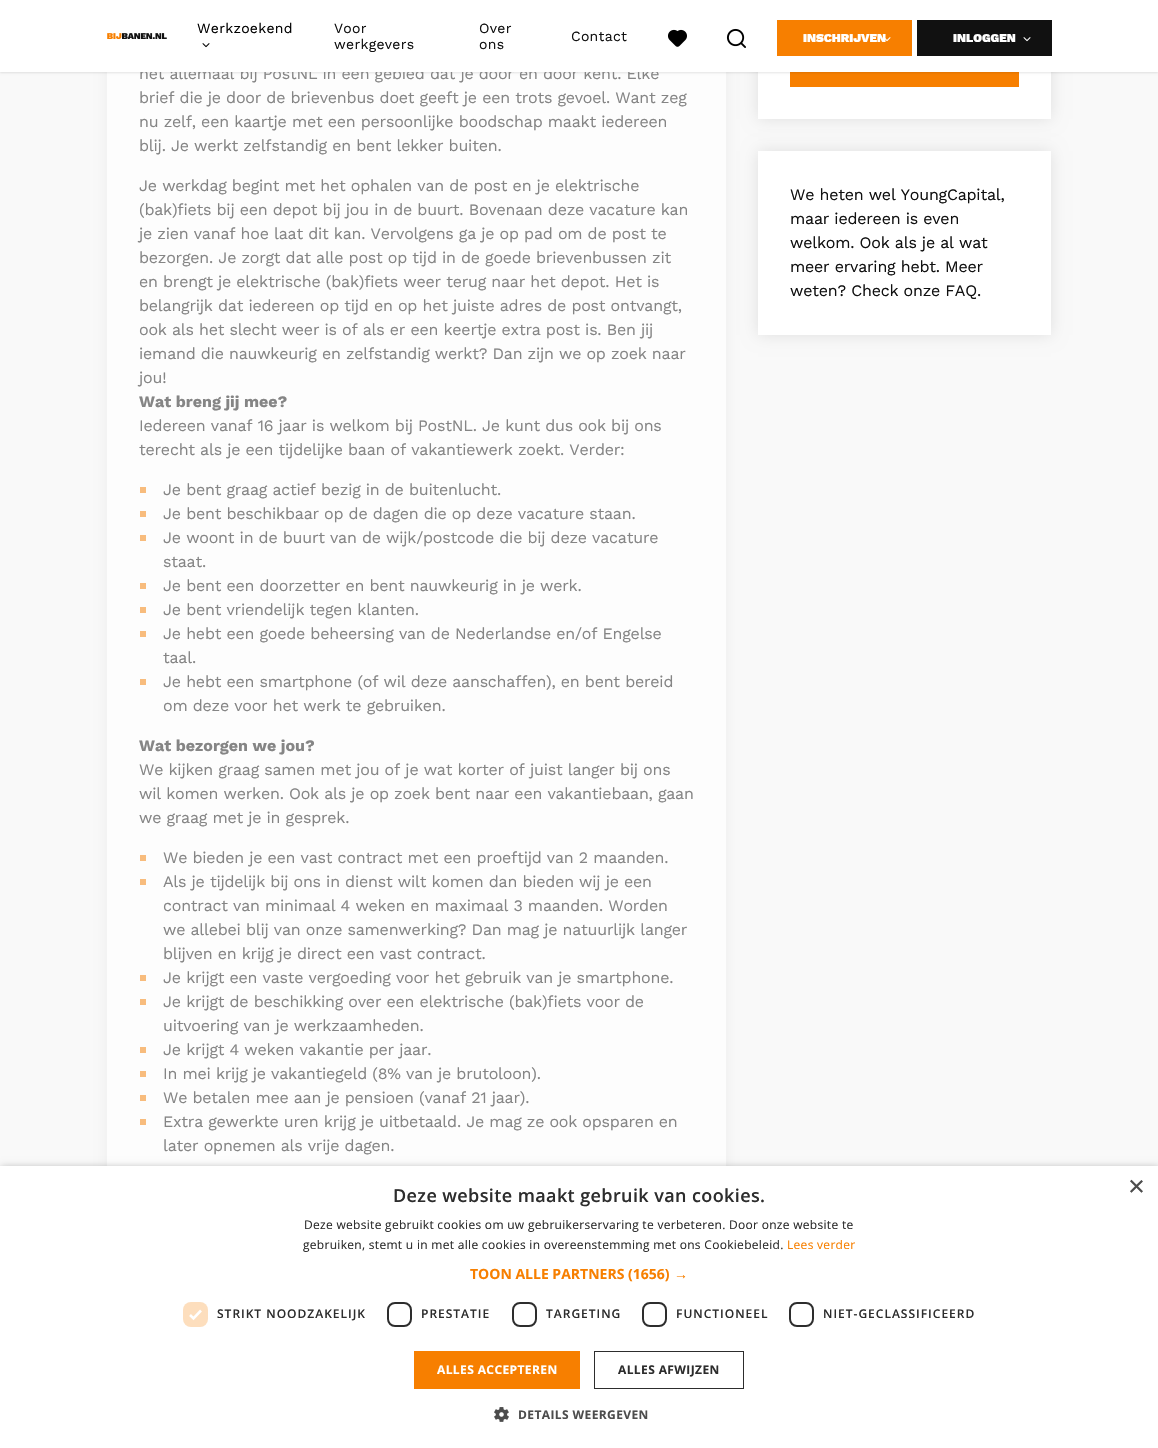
void draw(SkCanvas* canvas) {
  SkPaint paint;
  paint.setAntiAlias(true);
  auto face = [&](const char* family, int weight, float size, bool italic = false) {
    SkFontStyle style(weight, SkFontStyle::kNormal_Width,
      italic ? SkFontStyle::kItalic_Slant : SkFontStyle::kUpright_Slant);
    SkFont result(fontMgr->matchFamilyStyle(family, style), size);
    result.setSubpixel(true);
    return result;
  };
  auto writeSpaced = [&](const char* s, float x, float y, const SkFont& font, const SkPaint& ink, float letter, float word) {
    std::vector<SkGlyphID> glyphs(font.countText(s, strlen(s), SkTextEncoding::kUTF8));
    std::vector<float> xs(glyphs.size());
    font.textToGlyphs(s, strlen(s), SkTextEncoding::kUTF8, glyphs);
    font.getXPos(glyphs, xs, x);
    float extra = 0;
    for (size_t i = 0; i < glyphs.size(); i++) {
      xs[i] += extra;
      extra += letter + word * (glyphs[i] == font.unicharToGlyph(' '));
    }
    canvas->drawTextBlob(SkTextBlob::MakeFromPosHGlyphs(glyphs, xs, y, font), 0, 0, ink);
  };
  auto paste = [&](const char* path, float x, float y, float w, float h) {
    auto image = SkImages::DeferredFromEncodedData(SkData::MakeFromFileName(path));
    canvas->drawImageRect(image, SkRect::MakeXYWH(x, y, w, h), SkSamplingOptions());
  };
  auto shape = [&](const char* data, bool evenOdd = false) {
    SkPath result = *SkParsePath::FromSVGString(data);
    if (evenOdd) result.setFillType(SkPathFillType::kEvenOdd);
    return result;
  };
  canvas->clear(0xfff9f9f9);
  paint.setColor(0x1a7d7d7d);
  paint.setMaskFilter(SkMaskFilter::MakeBlur(kNormal_SkBlurStyle, 7.5f));
  canvas->drawRect(SkRect::MakeXYWH(107, -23, 619, 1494), paint);
  paint.setMaskFilter(nullptr);
  paint.setColor(0xfffdfdfd);
  canvas->drawRect(SkRect::MakeXYWH(107, 72, 619, 1094), paint);
  paint.setColor(0x1a000000);
  paint.setMaskFilter(SkMaskFilter::MakeBlur(kNormal_SkBlurStyle, 7.5f));
  canvas->drawRect(SkRect::MakeXYWH(758, -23, 293, 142), paint);
  paint.setMaskFilter(nullptr);
  paint.setColor(0xffffffff);
  canvas->drawRect(SkRect::MakeXYWH(758, 72, 293, 47), paint);
  paint.setColor(0xfff77f00);
  canvas->drawRect(SkRect::MakeXYWH(790, 72, 229, 15), paint);
  paint.setColor(0x1a000000);
  paint.setMaskFilter(SkMaskFilter::MakeBlur(kNormal_SkBlurStyle, 1));
  canvas->drawRect(SkRect::MakeXYWH(0, 1, 1158, 72), paint);
  paint.setMaskFilter(nullptr);
  paint.setColor(0xfff8bc7d);
  canvas->drawPath(shape("M140 487H146V493H140Z"), paint);
  canvas->drawPath(shape("M140 511H146V517H140Z"), paint);
  canvas->drawPath(shape("M140 535H146V541H140Z"), paint);
  canvas->drawPath(shape("M140 583H146V589H140Z"), paint);
  canvas->drawPath(shape("M140 607H146V613H140Z"), paint);
  canvas->drawPath(shape("M140 631H146V637H140Z"), paint);
  canvas->drawPath(shape("M140 679H146V685H140Z"), paint);
  canvas->drawPath(shape("M140 855H146V861H140Z"), paint);
  canvas->drawPath(shape("M140 879H146V885H140Z"), paint);
  canvas->drawPath(shape("M140 975H146V981H140Z"), paint);
  canvas->drawPath(shape("M140 999H146V1005H140Z"), paint);
  canvas->drawPath(shape("M140 1047H146V1053H140Z"), paint);
  canvas->drawPath(shape("M140 1071H146V1077H140Z"), paint);
  canvas->drawPath(shape("M140 1095H146V1101H140Z"), paint);
  canvas->drawPath(shape("M140 1119H146V1125H140Z"), paint);
  paint.setColor(0x1a000000);
  paint.setMaskFilter(SkMaskFilter::MakeBlur(kNormal_SkBlurStyle, 7.5f));
  canvas->drawRect(SkRect::MakeXYWH(758, 151, 293, 184), paint);
  paint.setMaskFilter(nullptr);
  paint.setColor(0xffffffff);
  canvas->drawRect(SkRect::MakeXYWH(758, 151, 293, 184), paint);
  paint.setColor(0x59000000);
  paint.setMaskFilter(SkMaskFilter::MakeBlur(kNormal_SkBlurStyle, 4));
  canvas->drawRect(SkRect::MakeXYWH(1, 1168, 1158, 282), paint);
  paint.setMaskFilter(nullptr);
  paint.setColor(0xffffffff);
  canvas->drawRect(SkRect::MakeXYWH(0, 1166, 1158, 282), paint);
  paint.setColor(0xfffddebd);
  canvas->drawRoundRect(SkRect::MakeXYWH(183, 1302, 25, 25), 8, 8, paint);
  paint.setStroke(true);
  paint.setStrokeWidth(2.6f);
  paint.setColor(0xffffffff);
  canvas->drawPath(shape("M190 1315L193.5 1318.5L201 1310.5"), paint);
  paint.setStrokeWidth(2);
  paint.setColor(0xff2d2d2d);
  canvas->drawRoundRect(SkRect::MakeXYWH(388, 1303, 23, 23), 7, 7, paint);
  canvas->drawRoundRect(SkRect::MakeXYWH(513, 1303, 23, 23), 7, 7, paint);
  canvas->drawRoundRect(SkRect::MakeXYWH(643, 1303, 23, 23), 7, 7, paint);
  canvas->drawRoundRect(SkRect::MakeXYWH(790, 1303, 23, 23), 7, 7, paint);
  paint.setStroke(false);
  paint.setColor(0xfff77f00);
  canvas->drawRect(SkRect::MakeXYWH(414, 1351, 166, 38), paint);
  paint.setStroke(true);
  paint.setStrokeWidth(1);
  paint.setColor(0xff2d2d2d);
  canvas->drawRect(SkRect::MakeXYWH(594.5f, 1351.5f, 149, 37), paint);
  paste("img/7.png", 494, 1407, 15, 15);
  auto f0 = face("Work Sans", 400, 16);
  paint.setStroke(false);
  paint.setColor(0xff858585);
  writeSpaced("het allemaal bij PostNL in een gebied dat je door en door kent. Elke", 139, 79, f0, paint, -0.2f, 0);
  paint.setColor(0xffffffff);
  canvas->drawRect(SkRect::MakeXYWH(0, 0, 1158, 72), paint);
  paste("img/1.png", 107, 33, 60, 6);
  paint.setColor(0xff111111);
  canvas->drawRect(SkRect::MakeXYWH(917, 20, 135, 36), paint);
  paste("img/6.png", 1023, 37, 8, 5);
  auto f1 = face("Work Sans", 900, 12);
  paint.setColor(0xffffffff);
  canvas->drawString("INLOGGEN", 953, 42, f1, paint);
  paint.setColor(0xfff77f00);
  canvas->drawRect(SkRect::MakeXYWH(777, 20, 135, 36), paint);
  paint.setColor(0xffffffff);
  canvas->drawString("INSCHRIJVEN", 803, 42, f1, paint);
  paste("img/5.png", 885, 37, 6, 5);
  paste("img/2.png", 202, 43, 8, 5);
  auto f2 = face("Work Sans", 400, 14);
  paint.setColor(0xff000000);
  writeSpaced("Werkzoekend", 197, 33, f2, paint, 0.3f, 0);
  paint.setColor(0xff111111);
  {
    const struct { const char* s; float x, y; } items[] = {
      {"Contact", 571, 41},
      {"ons", 479, 49},
      {"Over", 479, 33},
      {"werkgevers", 334, 49},
      {"Voor", 334, 33},
    };
    for (auto [s, x, y] : items) {
      writeSpaced(s, x, y, f2, paint, 0.3f, 0);
    }
  }
  paste("img/4.png", 726, 28, 20, 20);
  paste("img/3.png", 668, 29, 19, 18);
  paint.setColor(0xff858585);
  {
    const struct { const char* s; float x, y; } items[] = {
      {"brief die je door de brievenbus doet geeft je een trots gevoel. Want zeg", 139, 103},
      {"nu zelf, een kaartje met een persoonlijke boodschap maakt iedereen", 139, 127},
      {"blij. Je werkt zelfstandig en bent lekker buiten.", 139, 151},
      {"Je werkdag begint met het ophalen van de post en je elektrische", 139, 191},
      {"(bak)fiets bij een depot bij jou in de buurt. Bovenaan deze vacature kan", 139, 215},
      {"je zien vanaf hoe laat dit kan. Vervolgens ga je op pad om de post te", 139, 239},
      {"bezorgen. Je zorgt dat alle post op tijd in de goede brievenbussen zit", 139, 263},
      {"en brengt je elektrische (bak)fiets weer terug naar het depot. Het is", 139, 287},
      {"belangrijk dat iedereen op tijd en op het juiste adres de post ontvangt,", 139, 311},
      {"ook als het slecht weer is of als er een keertje extra post is. Ben jij", 139, 335},
      {"iemand die nauwkeurig en zelfstandig werkt? Dan zijn we op zoek naar", 139, 359},
      {"jou!", 139, 383},
    };
    for (auto [s, x, y] : items) {
      writeSpaced(s, x, y, f0, paint, -0.2f, 0);
    }
  }
  auto f3 = face("Work Sans", 700, 16);
  canvas->drawString("Wat breng jij mee?", 139, 407, f3, paint);
  {
    const struct { const char* s; float x, y; } items[] = {
      {"Iedereen vanaf 16 jaar is welkom bij PostNL. Je kunt dus ook bij ons", 139, 431},
      {"terecht als je een tijdelijke baan of vakantiewerk zoekt. Verder:", 139, 455},
      {"Je bent graag actief bezig in de buitenlucht.", 163, 495},
      {"Je bent beschikbaar op de dagen die op deze vacature staan.", 163, 519},
      {"Je woont in de buurt van de wijk/postcode die bij deze vacature", 163, 543},
      {"staat.", 163, 567},
      {"Je bent een doorzetter en bent nauwkeurig in je werk.", 163, 591},
      {"Je bent vriendelijk tegen klanten.", 163, 615},
      {"Je hebt een goede beheersing van de Nederlandse en/of Engelse", 163, 639},
      {"taal.", 163, 663},
      {"Je hebt een smartphone (of wil deze aanschaffen), en bent bereid", 163, 687},
      {"om deze voor het werk te gebruiken.", 163, 711},
    };
    for (auto [s, x, y] : items) {
      writeSpaced(s, x, y, f0, paint, -0.2f, 0);
    }
  }
  canvas->drawString("Wat bezorgen we jou?", 139, 751, f3, paint);
  {
    const struct { const char* s; float x, y; } items[] = {
      {"We kijken graag samen met jou of je wat korter of juist langer bij ons", 139, 775},
      {"wil komen werken. Ook als je op zoek bent naar een vakantiebaan, gaan", 139, 799},
      {"we graag met je in gesprek.", 139, 823},
      {"We bieden je een vast contract met een proeftijd van 2 maanden.", 163, 863},
      {"Als je tijdelijk bij ons in dienst wilt komen dan bieden wij je een", 163, 887},
      {"contract van minimaal 4 weken en maximaal 3 maanden. Worden", 163, 911},
      {"we allebei blij van onze samenwerking? Dan mag je natuurlijk langer", 163, 935},
      {"blijven en krijg je direct een vast contract.", 163, 959},
      {"Je krijgt een vaste vergoeding voor het gebruik van je smartphone.", 163, 983},
      {"Je krijgt de beschikking over een elektrische (bak)fiets voor de", 163, 1007},
      {"uitvoering van je werkzaamheden.", 163, 1031},
      {"Je krijgt 4 weken vakantie per jaar.", 163, 1055},
      {"In mei krijg je vakantiegeld (8% van je brutoloon).", 163, 1079},
      {"We betalen mee aan je pensioen (vanaf 21 jaar).", 163, 1103},
      {"Extra gewerkte uren krijg je uitbetaald. Je mag ze ook opsparen en", 163, 1127},
      {"later opnemen als vrije dagen.", 163, 1151},
    };
    for (auto [s, x, y] : items) {
      writeSpaced(s, x, y, f0, paint, -0.2f, 0);
    }
  }
  paint.setColor(0xff111111);
  {
    const struct { const char* s; float x, y; } items[] = {
      {"We heten wel YoungCapital,", 790, 200},
      {"maar iedereen is even", 790, 224},
      {"welkom. Ook als je al wat", 790, 248},
      {"meer ervaring hebt. Meer", 790, 272},
      {"weten? Check onze FAQ.", 790, 296},
    };
    for (auto [s, x, y] : items) {
      writeSpaced(s, x, y, f0, paint, -0.2f, 0);
    }
  }
  auto f4 = face("Liberation Sans", 400, 29);
  paint.setColor(0xff4d4d4d);
  canvas->drawString("×", 1128, 1196, f4, paint);
  auto f5 = face("Open Sans", 600, 18);
  paint.setColor(0xff2d2d2d);
  writeSpaced("Deze website maakt gebruik van cookies.", 393, 1202, f5, paint, 0.4f, 0);
  auto f6 = face("Open Sans", 400, 12);
  writeSpaced("Deze website gebruikt cookies om uw gebruikerservaring te verbeteren. Door onze website te", 304, 1229, f6, paint, 0.3f, 0);
  writeSpaced("gebruiken, stemt u in met alle cookies in overeenstemming met ons Cookiebeleid.", 303, 1249, f6, paint, 0.3f, 0);
  paint.setColor(0xfff77f00);
  writeSpaced("Lees verder", 787, 1249, f6, paint, 0.3f, 0);
  auto f7 = face("Open Sans", 700, 14);
  canvas->drawString("TOON ALLE PARTNERS (1656)", 470, 1279, f7, paint);
  auto f8 = face("Liberation Sans", 700, 14);
  canvas->drawString("→", 674, 1279, f8, paint);
  auto f9 = face("Open Sans", 600, 12);
  paint.setColor(0xff2d2d2d);
  {
    const struct { const char* s; float x, y; } items[] = {
      {"STRIKT NOODZAKELIJK", 217, 1318},
      {"PRESTATIE", 421, 1318},
      {"TARGETING", 546, 1318},
      {"FUNCTIONEEL", 676, 1318},
      {"NIET-GECLASSIFICEERD", 823, 1318},
    };
    for (auto [s, x, y] : items) {
      writeSpaced(s, x, y, f9, paint, 1, 0);
    }
  }
  auto f10 = face("Open Sans", 700, 12);
  paint.setColor(0xffffffff);
  writeSpaced("ALLES ACCEPTEREN", 437, 1374, f10, paint, 0.4f, 0);
  paint.setColor(0xff2d2d2d);
  writeSpaced("ALLES AFWIJZEN", 618, 1374, f10, paint, 0.4f, 0);
  paint.setColor(0xff4d4d4d);
  writeSpaced("DETAILS WEERGEVEN", 518, 1419, f10, paint, 0.4f, 0);
}
